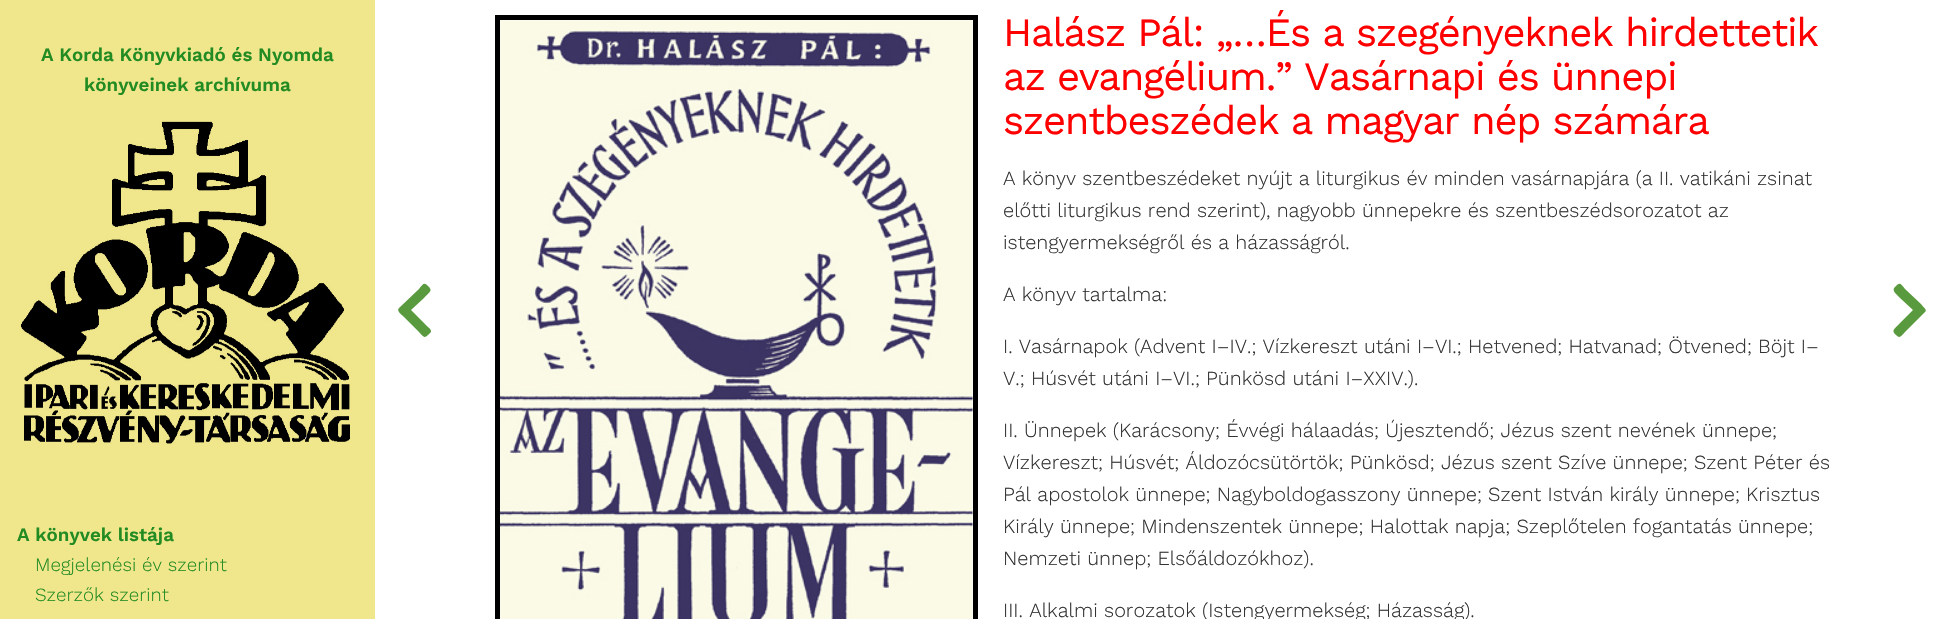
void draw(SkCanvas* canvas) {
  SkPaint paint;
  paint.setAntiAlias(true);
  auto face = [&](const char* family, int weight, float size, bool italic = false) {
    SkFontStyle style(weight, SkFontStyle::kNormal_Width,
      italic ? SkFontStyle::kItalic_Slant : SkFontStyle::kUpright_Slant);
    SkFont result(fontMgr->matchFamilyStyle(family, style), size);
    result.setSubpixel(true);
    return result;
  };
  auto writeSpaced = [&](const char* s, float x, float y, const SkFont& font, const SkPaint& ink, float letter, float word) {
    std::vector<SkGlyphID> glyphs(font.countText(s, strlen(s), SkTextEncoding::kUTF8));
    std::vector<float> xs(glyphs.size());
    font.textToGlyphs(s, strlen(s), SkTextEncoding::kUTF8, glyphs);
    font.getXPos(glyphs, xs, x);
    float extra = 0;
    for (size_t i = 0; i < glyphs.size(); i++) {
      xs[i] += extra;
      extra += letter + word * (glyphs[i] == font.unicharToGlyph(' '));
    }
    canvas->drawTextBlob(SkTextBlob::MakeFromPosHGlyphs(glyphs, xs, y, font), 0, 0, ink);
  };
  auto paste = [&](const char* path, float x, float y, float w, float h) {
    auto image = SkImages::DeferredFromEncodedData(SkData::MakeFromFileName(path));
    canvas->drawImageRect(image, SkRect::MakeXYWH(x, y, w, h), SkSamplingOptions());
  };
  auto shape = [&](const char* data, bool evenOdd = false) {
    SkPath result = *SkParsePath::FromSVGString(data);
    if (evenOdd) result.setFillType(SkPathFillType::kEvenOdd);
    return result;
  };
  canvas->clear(0xffffffff);
  paint.setColor(0xfff0e68c);
  canvas->drawRect(SkRect::MakeXYWH(0, 0, 375, 619), paint);
  paste("img/1.png", 21, 121, 329, 323);
  paint.setStroke(true);
  paint.setStrokeWidth(5);
  paint.setColor(0xff000000);
  canvas->drawRect(SkRect::MakeXYWH(497.5f, 17.5f, 478, 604), paint);
  paste("img/2.png", 500, 20, 473, 599);
  paint.setStroke(false);
  paint.setColor(0xff599a3e);
  canvas->drawPath(shape("M399 308L419 289C423 284 424 282 428 286C434 291 428 293 424 298L411 310L424 323C425 325 432 329 431 332L428 335C424 339 423 336 419 332L403 316C402 315 396 311 399 308Z"), paint);
  canvas->drawPath(shape("M1925 312L1905 332C1901 336 1900 339 1896 335C1890 330 1896 328 1900 323L1913 310L1900 298C1899 296 1892 292 1894 288L1896 286C1900 282 1901 284 1905 289L1921 304C1922 306 1928 310 1925 312Z"), paint);
  auto f0 = face("Work Sans", 600, 18.75f);
  paint.setColor(0xff228b22);
  {
    const struct { const char* s; float x, y; } items[] = {
      {"A Korda Könyvkiadó és Nyomda", 41, 61},
      {"könyveinek archívuma", 84, 91},
      {"A könyvek listája", 17, 541},
    };
    for (auto [s, x, y] : items) {
      canvas->drawString(s, x, y, f0, paint);
    }
  }
  auto f1 = face("Work Sans", 300, 18.75f);
  canvas->drawString("Megjelenési év szerint", 35, 571, f1, paint);
  canvas->drawString("Szerzők szerint", 35, 601, f1, paint);
  auto f2 = face("Work Sans", 400, 40);
  paint.setColor(0xffff0000);
  {
    const struct { const char* s; float x, y; } items[] = {
      {"Halász Pál: „…És a szegényeknek hirdettetik", 1003, 46},
      {"az evangélium.” Vasárnapi és ünnepi", 1003, 90},
      {"szentbeszédek a magyar nép számára", 1003, 134},
    };
    for (auto [s, x, y] : items) {
      writeSpaced(s, x, y, f2, paint, -1.25f, 0);
    }
  }
  auto f3 = face("Work Sans", 300, 20);
  paint.setColor(0xff323232);
  {
    const struct { const char* s; float x, y; } items[] = {
      {"A könyv szentbeszédeket nyújt a liturgikus év minden vasárnapjára (a II. vatikáni zsinat", 1003, 185},
      {"előtti liturgikus rend szerint), nagyobb ünnepekre és szentbeszédsorozatot az", 1003, 217},
      {"istengyermekségről és a házasságról.", 1003, 249},
      {"A könyv tartalma:", 1003, 301},
      {"I. Vasárnapok (Advent I–IV.; Vízkereszt utáni I–VI.; Hetvened; Hatvanad; Ötvened; Böjt I–", 1003, 353},
      {"V.; Húsvét utáni I–VI.; Pünkösd utáni I–XXIV.).", 1003, 385},
      {"II. Ünnepek (Karácsony; Évvégi hálaadás; Újesztendő; Jézus szent nevének ünnepe;", 1003, 437},
      {"Vízkereszt; Húsvét; Áldozócsütörtök; Pünkösd; Jézus szent Szíve ünnepe; Szent Péter és", 1003, 469},
      {"Pál apostolok ünnepe; Nagyboldogasszony ünnepe; Szent István király ünnepe; Krisztus", 1003, 501},
      {"Király ünnepe; Mindenszentek ünnepe; Halottak napja; Szeplőtelen fogantatás ünnepe;", 1003, 533},
      {"Nemzeti ünnep; Elsőáldozókhoz).", 1003, 565},
      {"III. Alkalmi sorozatok (Istengyermekség; Házasság).", 1003, 617},
    };
    for (auto [s, x, y] : items) {
      canvas->drawString(s, x, y, f3, paint);
    }
  }
}
